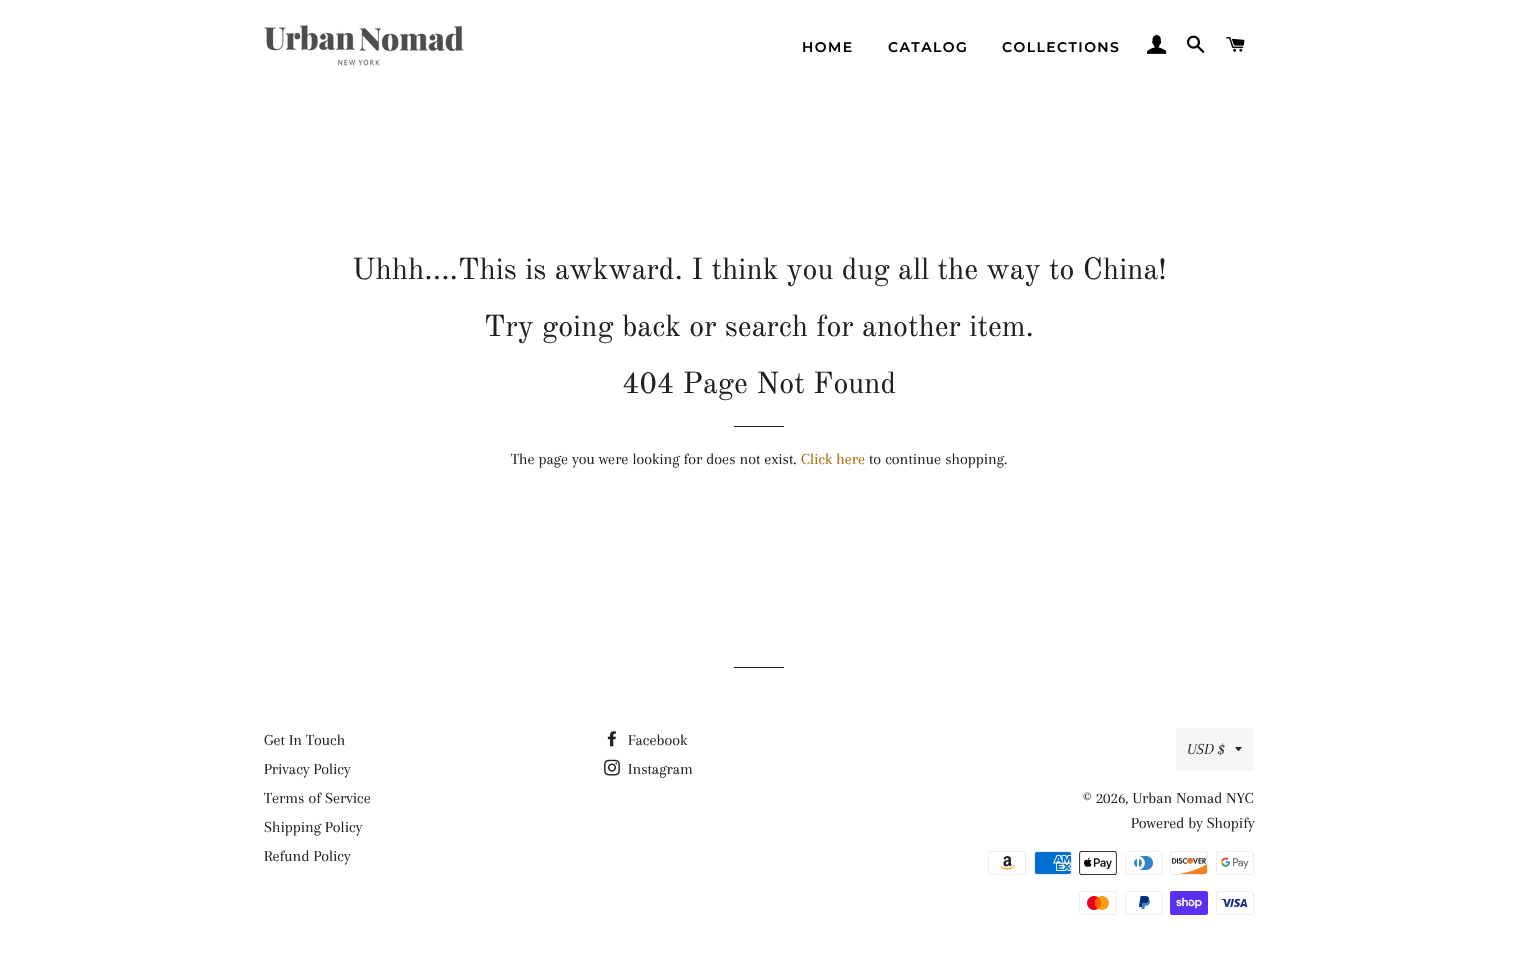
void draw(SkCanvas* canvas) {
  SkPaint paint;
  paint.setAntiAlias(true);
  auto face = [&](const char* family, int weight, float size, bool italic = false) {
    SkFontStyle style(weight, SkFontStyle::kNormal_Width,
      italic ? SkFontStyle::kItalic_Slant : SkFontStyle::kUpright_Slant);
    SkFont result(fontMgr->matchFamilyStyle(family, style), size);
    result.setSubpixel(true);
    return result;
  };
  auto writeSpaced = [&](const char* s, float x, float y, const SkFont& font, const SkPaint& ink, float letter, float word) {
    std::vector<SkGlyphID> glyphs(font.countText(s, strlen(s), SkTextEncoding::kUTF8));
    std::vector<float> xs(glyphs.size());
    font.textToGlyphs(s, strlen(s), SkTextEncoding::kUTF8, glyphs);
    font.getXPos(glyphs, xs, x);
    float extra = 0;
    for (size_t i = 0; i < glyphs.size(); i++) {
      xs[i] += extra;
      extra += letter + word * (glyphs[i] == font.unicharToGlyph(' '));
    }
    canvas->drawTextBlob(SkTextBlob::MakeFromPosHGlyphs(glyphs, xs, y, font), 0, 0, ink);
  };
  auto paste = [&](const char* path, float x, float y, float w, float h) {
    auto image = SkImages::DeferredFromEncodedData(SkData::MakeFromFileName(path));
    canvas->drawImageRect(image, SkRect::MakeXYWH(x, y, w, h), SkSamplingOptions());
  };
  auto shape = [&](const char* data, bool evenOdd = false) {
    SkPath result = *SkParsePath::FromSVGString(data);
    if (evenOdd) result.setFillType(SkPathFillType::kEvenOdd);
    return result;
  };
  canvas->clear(0xffffffff);
  paste("img/1.png", 264, 25, 200, 41);
  paste("img/2.png", 1147, 34, 20, 20);
  paste("img/3.png", 1187, 35, 18, 18);
  paste("img/4.png", 1226, 37, 19, 15);
  paint.setColor(0xff1f2021);
  canvas->drawRect(SkRect::MakeXYWH(734, 426, 50, 1), paint);
  canvas->drawRect(SkRect::MakeXYWH(734, 667, 50, 1), paint);
  paste("img/5.png", 607, 731, 9, 16);
  paste("img/6.png", 604, 759, 16, 17);
  paint.setColor(0xfff6f6f6);
  canvas->drawRect(SkRect::MakeXYWH(1176, 728, 78, 43), paint);
  paint.setColor(0xff1f2021);
  canvas->drawPath(shape("M1235 747C1239.5 752.5 1237.5 752.5 1242 747Z"), paint);
  paste("img/7.png", 988, 851, 38, 24);
  paste("img/8.png", 1034, 851, 38, 24);
  paste("img/9.png", 1079, 851, 38, 24);
  paste("img/10.png", 1125, 851, 38, 24);
  paste("img/11.png", 1170, 851, 38, 24);
  paste("img/12.png", 1216, 851, 38, 24);
  paste("img/13.png", 1079, 891, 38, 24);
  paste("img/14.png", 1125, 891, 38, 24);
  paste("img/15.png", 1170, 891, 38, 24);
  paste("img/16.png", 1216, 891, 38, 24);
  auto f0 = face("Montserrat", 600, 14);
  paint.setColor(0xff000000);
  {
    const struct { const char* s; float x, y; } items[] = {
      {"HOME", 802, 52},
      {"CATALOG", 888, 52},
      {"COLLECTIONS", 1002, 52},
    };
    for (auto [s, x, y] : items) {
      writeSpaced(s, x, y, f0, paint, 1.4f, 0);
    }
  }
  auto f1 = face("Old Standard TT", 400, 30);
  paint.setColor(0xff1f2021);
  {
    const struct { const char* s; float x, y; } items[] = {
      {"Uhhh....This is awkward. I think you dug all the way to China!", 352, 279},
      {"Try going back or search for another item.", 484, 336},
      {"404 Page Not Found", 622, 393},
    };
    for (auto [s, x, y] : items) {
      canvas->drawString(s, x, y, f1, paint);
    }
  }
  auto f2 = face("Arapey", 400, 16);
  canvas->drawString("The page you were looking for does not exist.", 511, 464, f2, paint);
  paint.setColor(0xffa56600);
  canvas->drawString("Click here", 801, 464, f2, paint);
  paint.setColor(0xff1f2021);
  {
    const struct { const char* s; float x, y; } items[] = {
      {"to continue shopping.", 869, 464},
      {"Get In Touch", 264, 745},
      {"Privacy Policy", 264, 774},
      {"Terms of Service", 264, 803},
      {"Shipping Policy", 264, 832},
      {"Refund Policy", 264, 861},
      {"Facebook", 628, 745},
      {"Instagram", 628, 774},
    };
    for (auto [s, x, y] : items) {
      canvas->drawString(s, x, y, f2, paint);
    }
  }
  auto f3 = face("Arapey", 400, 16, true);
  canvas->drawString("USD $", 1187, 754, f3, paint);
  canvas->drawString("© 2026, Urban Nomad NYC", 1083, 803, f2, paint);
  canvas->drawString("Powered by Shopify", 1131, 828, f2, paint);
}
